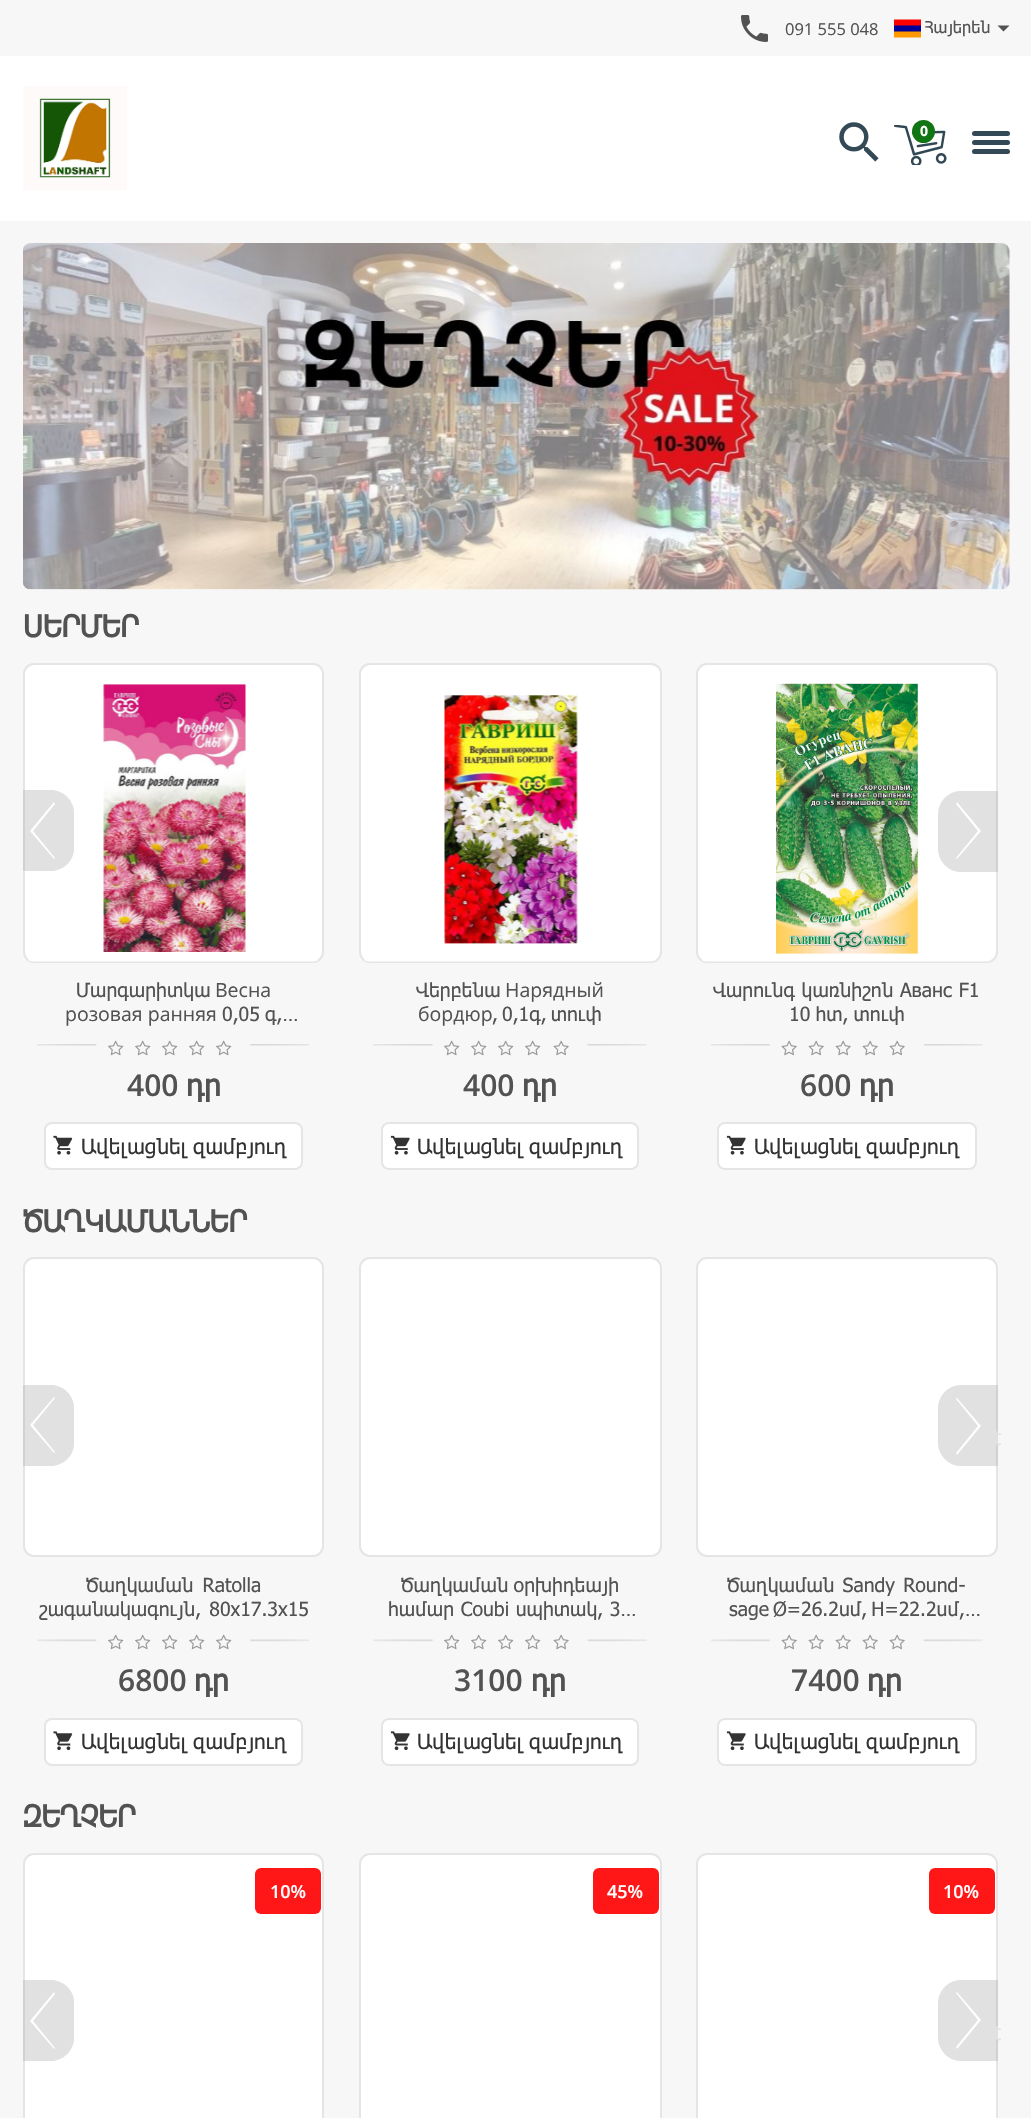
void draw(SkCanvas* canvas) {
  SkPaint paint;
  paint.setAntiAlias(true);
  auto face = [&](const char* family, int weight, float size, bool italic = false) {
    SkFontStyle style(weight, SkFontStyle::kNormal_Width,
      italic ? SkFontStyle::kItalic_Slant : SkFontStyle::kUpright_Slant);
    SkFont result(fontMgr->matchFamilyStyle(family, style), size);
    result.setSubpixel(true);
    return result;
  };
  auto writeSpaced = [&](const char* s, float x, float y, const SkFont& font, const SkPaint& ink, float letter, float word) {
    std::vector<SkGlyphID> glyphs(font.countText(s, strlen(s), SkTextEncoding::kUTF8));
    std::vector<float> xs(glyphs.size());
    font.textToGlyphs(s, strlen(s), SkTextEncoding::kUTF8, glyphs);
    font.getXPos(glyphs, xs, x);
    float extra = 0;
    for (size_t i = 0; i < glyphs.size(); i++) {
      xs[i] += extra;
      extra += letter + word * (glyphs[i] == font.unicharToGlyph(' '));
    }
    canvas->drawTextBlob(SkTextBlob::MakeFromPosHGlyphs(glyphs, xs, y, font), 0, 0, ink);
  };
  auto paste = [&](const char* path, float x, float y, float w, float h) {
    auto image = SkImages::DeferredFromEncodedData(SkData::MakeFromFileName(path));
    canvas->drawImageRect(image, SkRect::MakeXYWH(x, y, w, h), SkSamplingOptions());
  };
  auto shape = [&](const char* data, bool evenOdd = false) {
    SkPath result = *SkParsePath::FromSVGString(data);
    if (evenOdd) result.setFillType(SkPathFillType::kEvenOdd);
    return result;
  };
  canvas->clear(0xfff7f7f7);
  paste("img/1.png", 741, 15, 27, 27);
  paste("img/2.png", 894, 19, 27, 19);
  paint.setColor(0xff525252);
  canvas->drawPath(shape("M997.5 25.5H1009.5L1003.5 31.5Z"), paint);
  paint.setColor(0xffffffff);
  canvas->drawRect(SkRect::MakeXYWH(0, 56, 1031, 165), paint);
  paste("img/3.png", 23, 86, 104, 104);
  paste("img/4.png", 839, 122, 40, 40);
  paste("img/5.png", 894, 125, 53, 40);
  paint.setColor(0xff107512);
  canvas->drawCircle(923.5f, 131.5f, 11.5f, paint);
  paint.setColor(0xff344956);
  canvas->drawRoundRect(SkRect::MakeXYWH(972, 131, 38, 5), 2.5f, 2.5f, paint);
  canvas->drawRoundRect(SkRect::MakeXYWH(972, 140, 38, 5), 2.5f, 2.5f, paint);
  canvas->drawRoundRect(SkRect::MakeXYWH(972, 149, 38, 5), 2.5f, 2.5f, paint);
  paste("img/6.png", 23, 243, 987, 347);
  paint.setColor(0xffffffff);
  canvas->drawRoundRect(SkRect::MakeXYWH(24, 664, 299, 298), 10, 10, paint);
  paint.setStroke(true);
  paint.setStrokeWidth(2);
  paint.setColor(0xffe5e5e5);
  canvas->drawRoundRect(SkRect::MakeXYWH(24, 664, 299, 298), 10, 10, paint);
  paste("img/7.png", 28, 684, 290, 278);
  canvas->save();
  canvas->clipRect(SkRect::MakeXYWH(23, 663, 987, 507));
  paint.setStroke(false);
  paint.setColor(0x66b3b3b3);
  canvas->drawPath(shape("M51 871H14V790H51C63 790 74 800 74 813V849C74 861 63 871 51 871Z"), paint);
  canvas->restore();
  paint.setColor(0xffffffff);
  canvas->drawPath(shape("M55 804L33 831L55 858L54 859L30 831L54 802Z"), paint);
  canvas->drawRoundRect(SkRect::MakeXYWH(697, 664, 300, 298), 10, 10, paint);
  paint.setStroke(true);
  paint.setColor(0xffe5e5e5);
  canvas->drawRoundRect(SkRect::MakeXYWH(697, 664, 300, 298), 10, 10, paint);
  paste("img/15.png", 702, 683, 289, 279);
  paint.setStroke(false);
  paint.setColor(0x66b3b3b3);
  canvas->drawPath(shape("M961 791H998V872H961C948.5 872 938 861.5 938 849V814C938 801.5 948.5 791 961 791Z"), paint);
  paint.setColor(0xffffffff);
  canvas->drawPath(shape("M956 858L978 831L956 804L957 802L981 831L957 859Z"), paint);
  paste("img/8.png", 37, 1044, 272, 2);
  paste("img/9.png", 108, 1040, 16, 16);
  paste("img/9.png", 135, 1040, 16, 16);
  paste("img/9.png", 162, 1040, 16, 16);
  paste("img/9.png", 189, 1040, 16, 16);
  paste("img/9.png", 216, 1040, 16, 16);
  canvas->drawRoundRect(SkRect::MakeXYWH(45, 1123, 257, 46), 7, 7, paint);
  paint.setStroke(true);
  paint.setColor(0xffe5e5e5);
  canvas->drawRoundRect(SkRect::MakeXYWH(45, 1123, 257, 46), 7, 7, paint);
  paste("img/10.png", 53, 1135, 20, 20);
  paint.setStroke(false);
  paint.setColor(0xffffffff);
  canvas->drawRoundRect(SkRect::MakeXYWH(360, 664, 301, 298), 10, 10, paint);
  paint.setStroke(true);
  paint.setColor(0xffe5e5e5);
  canvas->drawRoundRect(SkRect::MakeXYWH(360, 664, 301, 298), 10, 10, paint);
  paste("img/11.png", 364, 695, 292, 267);
  paste("img/12.png", 373, 1044, 274, 2);
  paste("img/9.png", 444, 1040, 16, 16);
  paste("img/9.png", 471, 1040, 16, 16);
  paste("img/9.png", 498, 1040, 16, 16);
  paste("img/9.png", 525, 1040, 16, 16);
  paste("img/13.png", 553, 1040, 16, 16);
  paint.setStroke(false);
  paint.setColor(0xffffffff);
  canvas->drawRoundRect(SkRect::MakeXYWH(382, 1123, 256, 46), 7, 7, paint);
  paint.setStroke(true);
  paint.setColor(0xffe5e5e5);
  canvas->drawRoundRect(SkRect::MakeXYWH(382, 1123, 256, 46), 7, 7, paint);
  paste("img/14.png", 390, 1135, 20, 20);
  paste("img/16.png", 711, 1044, 272, 2);
  paste("img/13.png", 781, 1040, 16, 16);
  paste("img/13.png", 808, 1040, 16, 16);
  paste("img/13.png", 835, 1040, 16, 16);
  paste("img/13.png", 862, 1040, 16, 16);
  paste("img/13.png", 889, 1040, 16, 16);
  paint.setStroke(false);
  paint.setColor(0xffffffff);
  canvas->drawRoundRect(SkRect::MakeXYWH(718, 1123, 258, 46), 7, 7, paint);
  paint.setStroke(true);
  paint.setColor(0xffe5e5e5);
  canvas->drawRoundRect(SkRect::MakeXYWH(718, 1123, 258, 46), 7, 7, paint);
  paste("img/14.png", 726, 1135, 20, 20);
  paint.setStroke(false);
  paint.setColor(0xffffffff);
  canvas->drawRoundRect(SkRect::MakeXYWH(24, 1258, 299, 298), 10, 10, paint);
  paint.setStroke(true);
  paint.setColor(0xffe5e5e5);
  canvas->drawRoundRect(SkRect::MakeXYWH(24, 1258, 299, 298), 10, 10, paint);
  canvas->save();
  canvas->clipRect(SkRect::MakeXYWH(23, 1257, 987, 509));
  paint.setStroke(false);
  paint.setColor(0x66b3b3b3);
  canvas->drawPath(shape("M51 1466H14V1385H51C63 1385 74 1395 74 1408V1444C74 1456 63 1466 51 1466Z"), paint);
  canvas->restore();
  paint.setColor(0xffffffff);
  canvas->drawPath(shape("M55 1398L33 1425L55 1452L54 1453L30 1425L54 1397Z"), paint);
  canvas->drawRoundRect(SkRect::MakeXYWH(697, 1258, 300, 298), 10, 10, paint);
  paint.setStroke(true);
  paint.setColor(0xffe5e5e5);
  canvas->drawRoundRect(SkRect::MakeXYWH(697, 1258, 300, 298), 10, 10, paint);
  paint.setStroke(false);
  paint.setColor(0x66b3b3b3);
  canvas->drawPath(shape("M961 1385H998V1466H961C948.5 1466 938 1455.5 938 1443V1408C938 1395.5 948.5 1385 961 1385Z"), paint);
  paint.setColor(0xffffffff);
  canvas->drawPath(shape("M956 1453L978 1426L956 1399L957 1398L981 1426L957 1455Z"), paint);
  paste("img/17.png", 37, 1639, 273, 3);
  paste("img/9.png", 108, 1634, 16, 16);
  paste("img/9.png", 135, 1634, 16, 16);
  paste("img/9.png", 162, 1634, 16, 16);
  paste("img/9.png", 189, 1634, 16, 16);
  paste("img/9.png", 216, 1634, 16, 16);
  canvas->drawRoundRect(SkRect::MakeXYWH(45, 1719, 257, 46), 7, 7, paint);
  paint.setStroke(true);
  paint.setColor(0xffe5e5e5);
  canvas->drawRoundRect(SkRect::MakeXYWH(45, 1719, 257, 46), 7, 7, paint);
  paste("img/18.png", 53, 1731, 20, 20);
  paint.setStroke(false);
  paint.setColor(0xffffffff);
  canvas->drawRoundRect(SkRect::MakeXYWH(360, 1258, 301, 298), 10, 10, paint);
  paint.setStroke(true);
  paint.setColor(0xffe5e5e5);
  canvas->drawRoundRect(SkRect::MakeXYWH(360, 1258, 301, 298), 10, 10, paint);
  paste("img/19.png", 373, 1639, 274, 3);
  paste("img/9.png", 444, 1634, 16, 16);
  paste("img/9.png", 471, 1634, 16, 16);
  paste("img/9.png", 498, 1634, 16, 16);
  paste("img/9.png", 525, 1634, 16, 16);
  paste("img/13.png", 553, 1634, 16, 16);
  paint.setStroke(false);
  paint.setColor(0xffffffff);
  canvas->drawRoundRect(SkRect::MakeXYWH(382, 1719, 256, 46), 7, 7, paint);
  paint.setStroke(true);
  paint.setColor(0xffe5e5e5);
  canvas->drawRoundRect(SkRect::MakeXYWH(382, 1719, 256, 46), 7, 7, paint);
  paste("img/20.png", 390, 1731, 20, 20);
  paste("img/21.png", 711, 1639, 272, 3);
  paste("img/13.png", 781, 1634, 16, 16);
  paste("img/13.png", 808, 1634, 16, 16);
  paste("img/13.png", 835, 1634, 16, 16);
  paste("img/13.png", 862, 1634, 16, 16);
  paste("img/13.png", 889, 1634, 16, 16);
  paint.setStroke(false);
  paint.setColor(0xffffffff);
  canvas->drawRoundRect(SkRect::MakeXYWH(718, 1719, 258, 46), 7, 7, paint);
  paint.setStroke(true);
  paint.setColor(0xffe5e5e5);
  canvas->drawRoundRect(SkRect::MakeXYWH(718, 1719, 258, 46), 7, 7, paint);
  paste("img/20.png", 726, 1731, 20, 20);
  paint.setStroke(false);
  paint.setColor(0xffffffff);
  canvas->drawRoundRect(SkRect::MakeXYWH(24, 1854, 299, 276), 10, 10, paint);
  paint.setStroke(true);
  paint.setColor(0xffe5e5e5);
  canvas->drawRoundRect(SkRect::MakeXYWH(24, 1854, 299, 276), 10, 10, paint);
  paint.setStroke(false);
  paint.setColor(0xffff1617);
  canvas->drawRoundRect(SkRect::MakeXYWH(255, 1868, 66, 46), 6, 6, paint);
  paint.setColor(0xffffffff);
  canvas->drawRoundRect(SkRect::MakeXYWH(360, 1854, 301, 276), 10, 10, paint);
  paint.setStroke(true);
  paint.setColor(0xffe5e5e5);
  canvas->drawRoundRect(SkRect::MakeXYWH(360, 1854, 301, 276), 10, 10, paint);
  paint.setStroke(false);
  paint.setColor(0xffff1617);
  canvas->drawRoundRect(SkRect::MakeXYWH(593, 1868, 66, 46), 6, 6, paint);
  paint.setColor(0xffffffff);
  canvas->drawRoundRect(SkRect::MakeXYWH(697, 1854, 300, 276), 10, 10, paint);
  paint.setStroke(true);
  paint.setColor(0xffe5e5e5);
  canvas->drawRoundRect(SkRect::MakeXYWH(697, 1854, 300, 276), 10, 10, paint);
  paint.setStroke(false);
  paint.setColor(0xffff1617);
  canvas->drawRoundRect(SkRect::MakeXYWH(929, 1868, 66, 46), 6, 6, paint);
  canvas->save();
  canvas->clipRect(SkRect::MakeXYWH(23, 1853, 987, 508));
  paint.setColor(0x66b3b3b3);
  canvas->drawPath(shape("M51 2061H14V1980H51C63 1980 74 1990 74 2002V2038C74 2051 63 2061 51 2061Z"), paint);
  canvas->restore();
  paint.setColor(0xffffffff);
  canvas->drawPath(shape("M55 1994L33 2021L55 2048L54 2049L30 2021L54 1992Z"), paint);
  paint.setColor(0x66b3b3b3);
  canvas->drawPath(shape("M961 1980H998V2061H961C948.5 2061 938 2050.5 938 2038V2003C938 1990.5 948.5 1980 961 1980Z"), paint);
  paint.setColor(0xffffffff);
  canvas->drawPath(shape("M956 2047L978 2020L956 1993L957 1992L981 2020L957 2049Z"), paint);
  auto f0 = face("Open Sans", 400, 16.5f);
  paint.setColor(0xff525252);
  canvas->drawString("091 555 048", 785, 35, f0, paint);
  auto f1 = face("Tahoma", 400, 16.5f);
  canvas->drawString("Հայերեն", 925, 33, f1, paint);
  auto f2 = face("Open Sans", 700, 14);
  paint.setColor(0xffffffff);
  canvas->drawString("0", 920, 136, f2, paint);
  auto f3 = face("Tahoma", 700, 30);
  paint.setColor(0xff525252);
  canvas->drawString("ՍԵՐՄԵՐ", 23, 637, f3, paint);
  auto f4 = face("Tahoma", 400, 19.5f);
  canvas->drawString("Մարգարիտկա", 76, 997, f4, paint);
  auto f5 = face("Open Sans", 400, 19.5f);
  canvas->drawString("Весна", 215, 997, f5, paint);
  canvas->drawString("розовая ранняя", 65, 1021, f5, paint);
  canvas->drawString("0,05", 222, 1021, f4, paint);
  canvas->drawString("գ,…", 265, 1021, f4, paint);
  auto f6 = face("Open Sans", 600, 30);
  canvas->drawString("400", 127, 1096, f6, paint);
  canvas->drawString("դր", 186, 1096, f3, paint);
  auto f7 = face("Tahoma", 400, 21);
  paint.setColor(0xff333333);
  writeSpaced("Ավելացնել զամբյուղ", 81, 1154, f7, paint, 0, -1);
  paint.setColor(0xff525252);
  canvas->drawString("Վերբենա", 416, 997, f4, paint);
  canvas->drawString("Нарядный", 505, 997, f5, paint);
  canvas->drawString("бордюр", 418, 1021, f5, paint);
  writeSpaced(", 0,1գ, տուփ", 492, 1021, f4, paint, 0, -2);
  canvas->drawString("400", 463, 1096, f6, paint);
  canvas->drawString("դր", 522, 1096, f3, paint);
  paint.setColor(0xff333333);
  writeSpaced("Ավելացնել զամբյուղ", 417, 1154, f7, paint, 0, -1);
  paint.setColor(0xff525252);
  writeSpaced("Վարունգ կառնիշոն Аванс F1", 713, 997, f4, paint, 0, 0.5f);
  writeSpaced("10 հտ, տուփ", 789, 1021, f4, paint, 0, -1);
  canvas->drawString("600", 800, 1096, f6, paint);
  canvas->drawString("դր", 859, 1096, f3, paint);
  paint.setColor(0xff333333);
  writeSpaced("Ավելացնել զամբյուղ", 754, 1154, f7, paint, 0, -1);
  paint.setColor(0xff525252);
  canvas->drawString("ԾԱՂԿԱՄԱՆՆԵՐ", 23, 1232, f3, paint);
  auto f8 = face("Open Sans", 400, 21);
  paint.setColor(0xffe2e2e2);
  canvas->drawString("t", 994, 1445, f8, paint);
  paint.setColor(0xff525252);
  writeSpaced("Ծաղկաման Ratolla", 86, 1592, f4, paint, 0, 3);
  writeSpaced("շագանակագույն, 80x17.3x15", 39, 1616, f4, paint, 0, 2);
  canvas->drawString("6800", 118, 1691, f6, paint);
  canvas->drawString("դր", 194, 1691, f3, paint);
  paint.setColor(0xff333333);
  writeSpaced("Ավելացնել զամբյուղ", 81, 1749, f7, paint, 0, -1);
  paint.setColor(0xff525252);
  writeSpaced("Ծաղկաման օրխիդեայի", 401, 1592, f4, paint, 0, -1);
  writeSpaced("համար Coubi սպիտակ, 3…", 388, 1616, f4, paint, 0, 0.5f);
  canvas->drawString("3100", 454, 1691, f6, paint);
  canvas->drawString("դր", 531, 1691, f3, paint);
  paint.setColor(0xff333333);
  writeSpaced("Ավելացնել զամբյուղ", 417, 1749, f7, paint, 0, -1);
  paint.setColor(0xff525252);
  writeSpaced("Ծաղկաման Sandy Round-", 727, 1592, f4, paint, 0, 2);
  writeSpaced("sage Ø=26.2սմ, H=22.2սմ,…", 729, 1616, f4, paint, 0, -2);
  canvas->drawString("7400", 791, 1691, f6, paint);
  canvas->drawString("դր", 867, 1691, f3, paint);
  paint.setColor(0xff333333);
  writeSpaced("Ավելացնել զամբյուղ", 754, 1749, f7, paint, 0, -1);
  paint.setColor(0xff525252);
  canvas->drawString("ԶԵՂՉԵՐ", 23, 1827, f3, paint);
  auto f9 = face("Open Sans", 600, 18);
  paint.setColor(0xffffffff);
  {
    const struct { const char* s; float x, y; } items[] = {
      {"10%", 270, 1898},
      {"45%", 607, 1898},
      {"10%", 943, 1898},
    };
    for (auto [s, x, y] : items) {
      canvas->drawString(s, x, y, f9, paint);
    }
  }
  paint.setColor(0xffe2e2e2);
  canvas->drawString("t", 994, 2040, f8, paint);
}
